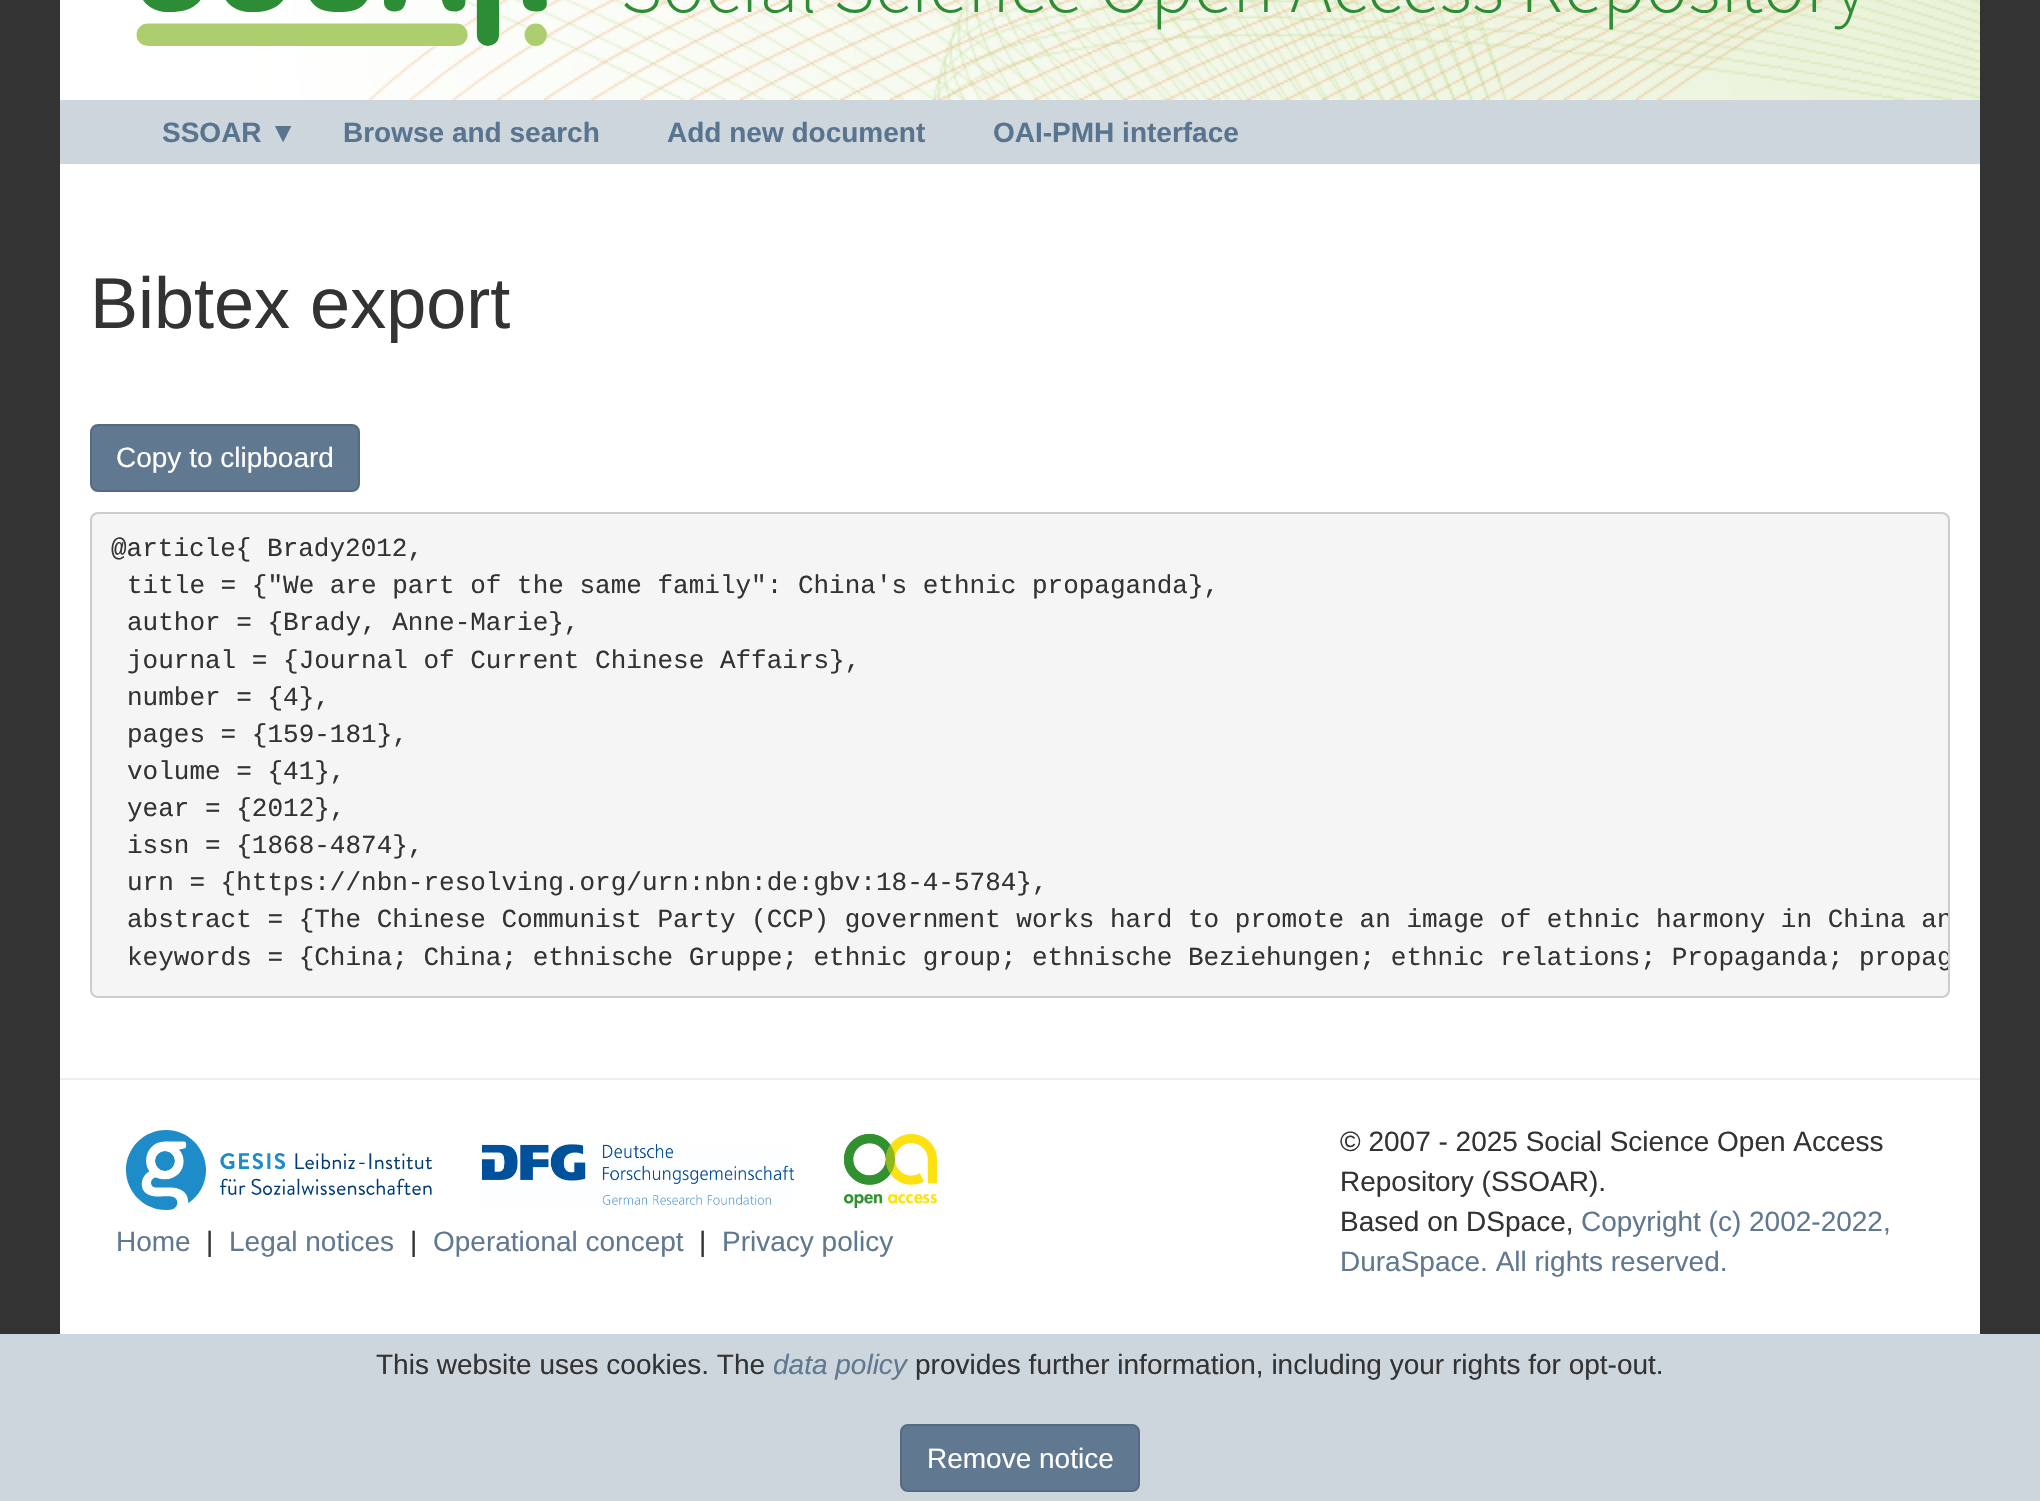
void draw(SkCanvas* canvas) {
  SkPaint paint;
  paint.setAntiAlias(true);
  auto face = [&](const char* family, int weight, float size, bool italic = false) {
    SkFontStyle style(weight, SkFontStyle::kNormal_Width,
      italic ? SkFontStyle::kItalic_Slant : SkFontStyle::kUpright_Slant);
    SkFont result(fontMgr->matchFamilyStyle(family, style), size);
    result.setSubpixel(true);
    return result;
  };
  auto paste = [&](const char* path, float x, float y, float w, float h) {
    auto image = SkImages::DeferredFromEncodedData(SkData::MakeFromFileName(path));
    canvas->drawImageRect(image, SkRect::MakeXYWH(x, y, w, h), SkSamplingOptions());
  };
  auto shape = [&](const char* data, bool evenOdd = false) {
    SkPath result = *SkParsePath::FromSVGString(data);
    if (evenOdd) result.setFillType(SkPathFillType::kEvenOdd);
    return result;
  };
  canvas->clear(0xff333333);
  paint.setColor(0xffffffff);
  canvas->drawRect(SkRect::MakeXYWH(60, 0, 76, 100), paint);
  paste("img/1.png", 136, 0, 1844, 100);
  paint.setColor(0xffcdd5dd);
  canvas->drawRect(SkRect::MakeXYWH(60, 100, 1920, 64), paint);
  paint.setColor(0xffffffff);
  canvas->drawRect(SkRect::MakeXYWH(60, 164, 1920, 1170), paint);
  paint.setColor(0xff607890);
  canvas->drawRoundRect(SkRect::MakeXYWH(91, 425, 268, 66), 7, 7, paint);
  paint.setStroke(true);
  paint.setStrokeWidth(2);
  paint.setColor(0xff566b81);
  canvas->drawRoundRect(SkRect::MakeXYWH(91, 425, 268, 66), 7, 7, paint);
  paint.setStroke(false);
  paint.setColor(0xfff5f5f5);
  canvas->drawRoundRect(SkRect::MakeXYWH(91, 513, 1858, 484), 7, 7, paint);
  paint.setStroke(true);
  paint.setColor(0xffcccccc);
  canvas->drawRoundRect(SkRect::MakeXYWH(91, 513, 1858, 484), 7, 7, paint);
  paint.setStroke(false);
  paint.setColor(0xffeeeeee);
  canvas->drawRect(SkRect::MakeXYWH(60, 1078, 1920, 2), paint);
  paste("img/2.png", 126, 1130, 306, 80);
  paste("img/3.png", 482, 1144, 312, 61);
  paste("img/4.png", 844, 1134, 93, 74);
  paint.setColor(0xffcdd5dd);
  canvas->drawRect(SkRect::MakeXYWH(0, 1334, 2040, 167), paint);
  paint.setColor(0xff607890);
  canvas->drawRoundRect(SkRect::MakeXYWH(901, 1425, 238, 66), 7, 7, paint);
  paint.setStroke(true);
  paint.setColor(0xff566b81);
  canvas->drawRoundRect(SkRect::MakeXYWH(901, 1425, 238, 66), 7, 7, paint);
  auto f0 = face("Liberation Sans", 700, 28);
  paint.setStroke(false);
  paint.setColor(0xff58748f);
  {
    const struct { const char* s; float x, y; } items[] = {
      {"SSOAR ▼", 162, 142},
      {"Browse and search", 343, 142},
      {"Add new document", 667, 142},
      {"OAI-PMH interface", 993, 142},
    };
    for (auto [s, x, y] : items) {
      canvas->drawString(s, x, y, f0, paint);
    }
  }
  auto f1 = face("Liberation Sans", 400, 72);
  paint.setColor(0xff333333);
  canvas->drawString("Bibtex export", 90, 328, f1, paint);
  auto f2 = face("Liberation Sans", 400, 28);
  paint.setColor(0xffffffff);
  canvas->drawString("Copy to clipboard", 116, 467, f2, paint);
  auto f3 = face("Liberation Mono", 400, 26);
  paint.setColor(0xff333333);
  {
    const struct { const char* s; float x, y; } items[] = {
      {"@article{ Brady2012,", 111, 556},
      {"title = {\"We are part of the same family\": China's ethnic propaganda},", 127, 593},
      {"author = {Brady, Anne-Marie},", 127, 630},
      {"journal = {Journal of Current Chinese Affairs},", 127, 668},
      {"number = {4},", 127, 705},
      {"pages = {159-181},", 127, 742},
      {"volume = {41},", 127, 779},
      {"year = {2012},", 127, 816},
      {"issn = {1868-4874},", 127, 853},
      {"urn = {https://nbn-resolving.org/urn:nbn:de:gbv:18-4-5784},", 127, 890},
    };
    for (auto [s, x, y] : items) {
      canvas->drawString(s, x, y, f3, paint);
    }
  }
  canvas->save();
  canvas->clipPath(shape("M98 514H1942C1945.5 514 1948 516.5 1948 520V990C1948 993.5 1945.5 996 1942 996H98C94.5 996 92 993.5 92 990V520C92 516.5 94.5 514 98 514Z"), true);
  canvas->drawString("abstract = {The Chinese Communist Party (CCP) government works hard to promote an image of ethnic harmony in China an", 127, 927, f3, paint);
  canvas->drawString("keywords = {China; China; ethnische Gruppe; ethnic group; ethnische Beziehungen; ethnic relations; Propaganda; propag", 127, 965, f3, paint);
  canvas->restore();
  paint.setColor(0xff607890);
  canvas->drawString("Home", 116, 1251, f2, paint);
  paint.setColor(0xff333333);
  canvas->drawString("|", 206, 1251, f2, paint);
  paint.setColor(0xff607890);
  canvas->drawString("Legal notices", 229, 1251, f2, paint);
  paint.setColor(0xff333333);
  canvas->drawString("|", 410, 1251, f2, paint);
  paint.setColor(0xff607890);
  canvas->drawString("Operational concept", 433, 1251, f2, paint);
  paint.setColor(0xff333333);
  canvas->drawString("|", 699, 1251, f2, paint);
  paint.setColor(0xff607890);
  canvas->drawString("Privacy policy", 722, 1251, f2, paint);
  paint.setColor(0xff333333);
  {
    const struct { const char* s; float x, y; } items[] = {
      {"© 2007 - 2025 Social Science Open Access", 1340, 1151},
      {"Repository (SSOAR).", 1340, 1191},
      {"Based on DSpace,", 1340, 1231},
    };
    for (auto [s, x, y] : items) {
      canvas->drawString(s, x, y, f2, paint);
    }
  }
  paint.setColor(0xff607890);
  canvas->drawString("Copyright (c) 2002-2022,", 1581, 1231, f2, paint);
  canvas->drawString("DuraSpace. All rights reserved.", 1340, 1271, f2, paint);
  paint.setColor(0xff333333);
  canvas->drawString("This website uses cookies. The", 376, 1374, f2, paint);
  auto f4 = face("Liberation Sans", 400, 28, true);
  paint.setColor(0xff607890);
  canvas->drawString("data policy", 773, 1374, f4, paint);
  paint.setColor(0xff333333);
  canvas->drawString("provides further information, including your rights for opt-out.", 915, 1374, f2, paint);
  paint.setColor(0xffffffff);
  canvas->drawString("Remove notice", 927, 1468, f2, paint);
}
